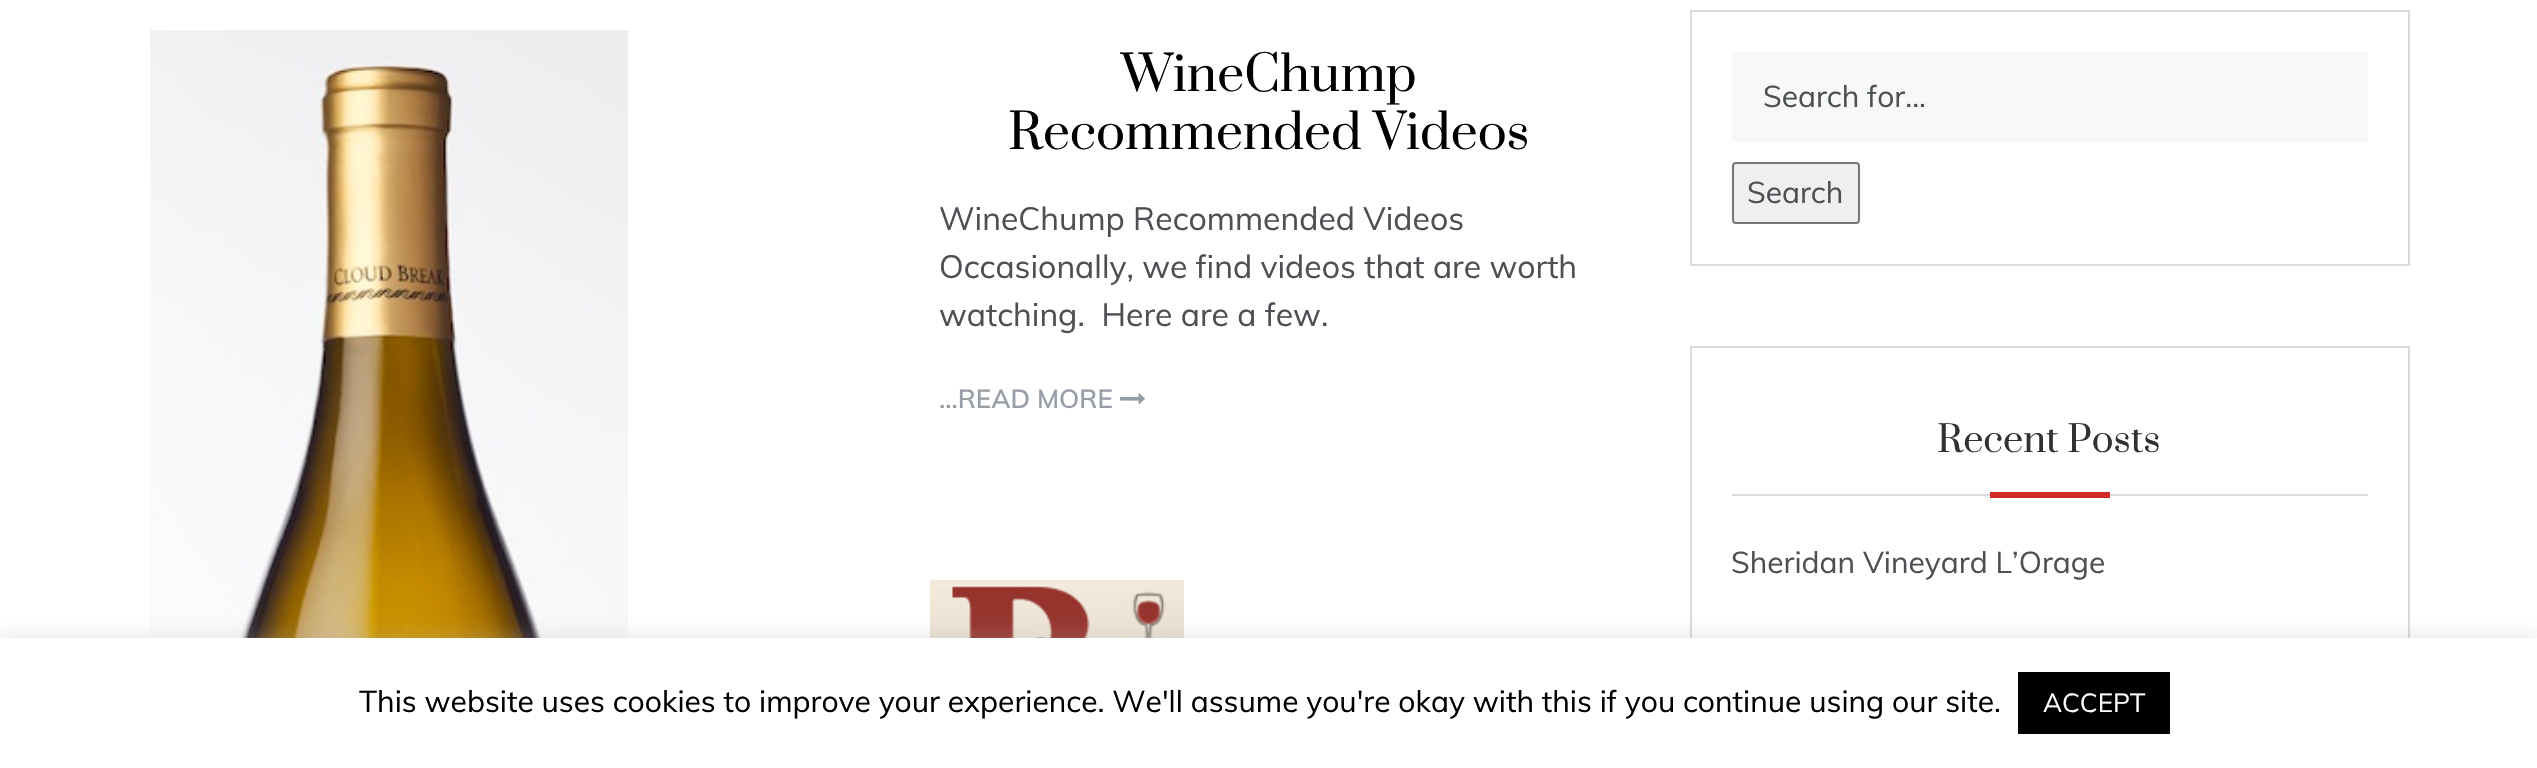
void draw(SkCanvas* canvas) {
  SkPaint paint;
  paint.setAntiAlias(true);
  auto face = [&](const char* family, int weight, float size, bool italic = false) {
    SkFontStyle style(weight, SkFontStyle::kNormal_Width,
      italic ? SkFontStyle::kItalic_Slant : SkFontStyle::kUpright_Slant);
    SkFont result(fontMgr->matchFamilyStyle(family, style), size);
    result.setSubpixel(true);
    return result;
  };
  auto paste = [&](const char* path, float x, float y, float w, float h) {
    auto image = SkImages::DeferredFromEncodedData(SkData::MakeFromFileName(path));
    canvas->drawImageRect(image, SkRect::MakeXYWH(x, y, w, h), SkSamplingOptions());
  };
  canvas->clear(0xffffffff);
  paste("img/1.png", 150, 30, 478, 608);
  paste("img/2.png", 1120, 393, 25, 12);
  paste("img/3.png", 930, 580, 254, 58);
  paint.setStroke(true);
  paint.setStrokeWidth(2);
  paint.setColor(0xffd9d9d9);
  canvas->drawRect(SkRect::MakeXYWH(1691, 11, 718, 254), paint);
  paint.setStroke(false);
  paint.setColor(0xfff7f8f8);
  canvas->drawRect(SkRect::MakeXYWH(1732, 52, 636, 90), paint);
  paint.setColor(0xffefefef);
  canvas->drawRoundRect(SkRect::MakeXYWH(1733, 163, 126, 60), 3, 3, paint);
  paint.setStroke(true);
  paint.setColor(0xff767676);
  canvas->drawRoundRect(SkRect::MakeXYWH(1733, 163, 126, 60), 3, 3, paint);
  paint.setColor(0xffd9d9d9);
  canvas->drawRect(SkRect::MakeXYWH(1691, 347, 718, 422), paint);
  paint.setStroke(false);
  canvas->drawRect(SkRect::MakeXYWH(1732, 494, 636, 2), paint);
  paint.setColor(0xffd42929);
  canvas->drawRect(SkRect::MakeXYWH(1990, 492, 120, 6), paint);
  paint.setColor(0x4dacabab);
  paint.setMaskFilter(SkMaskFilter::MakeBlur(kNormal_SkBlurStyle, 10));
  canvas->drawRect(SkRect::MakeXYWH(0, 636, 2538, 130), paint);
  paint.setMaskFilter(nullptr);
  paint.setColor(0xffffffff);
  canvas->drawRect(SkRect::MakeXYWH(0, 638, 2537, 130), paint);
  paint.setColor(0xff000000);
  canvas->drawRect(SkRect::MakeXYWH(2018, 672, 152, 62), paint);
  auto f0 = face("Prata", 400, 48);
  canvas->drawString("WineChump", 1121, 91, f0, paint);
  canvas->drawString("Recommended Videos", 1008, 149, f0, paint);
  auto f1 = face("Muli", 400, 32);
  paint.setColor(0xff4c4f53);
  {
    const struct { const char* s; float x, y; } items[] = {
      {"WineChump Recommended Videos", 939, 230},
      {"Occasionally, we find videos that are worth", 939, 278},
      {"watching.  Here are a few.", 939, 326},
    };
    for (auto [s, x, y] : items) {
      canvas->drawString(s, x, y, f1, paint);
    }
  }
  auto f2 = face("Muli", 600, 26);
  paint.setColor(0xff989ea6);
  canvas->drawString("...READ MORE", 939, 408, f2, paint);
  auto f3 = face("Muli", 400, 30);
  paint.setColor(0xff4c4f53);
  canvas->drawString("Search for...", 1763, 107, f3, paint);
  canvas->drawString("Search", 1747, 203, f3, paint);
  auto f4 = face("Prata", 400, 36);
  paint.setColor(0xff2f3235);
  canvas->drawString("Recent Posts", 1937, 452, f4, paint);
  paint.setColor(0xff4c4f53);
  canvas->drawString("Sheridan Vineyard L’Orage", 1731, 573, f3, paint);
  paint.setColor(0xff000000);
  canvas->drawString("This website uses cookies to improve your experience. We'll assume you're okay with this if you continue using our site.", 359, 712, f3, paint);
  auto f5 = face("Muli", 400, 26);
  paint.setColor(0xffffffff);
  canvas->drawString("ACCEPT", 2043, 712, f5, paint);
}
